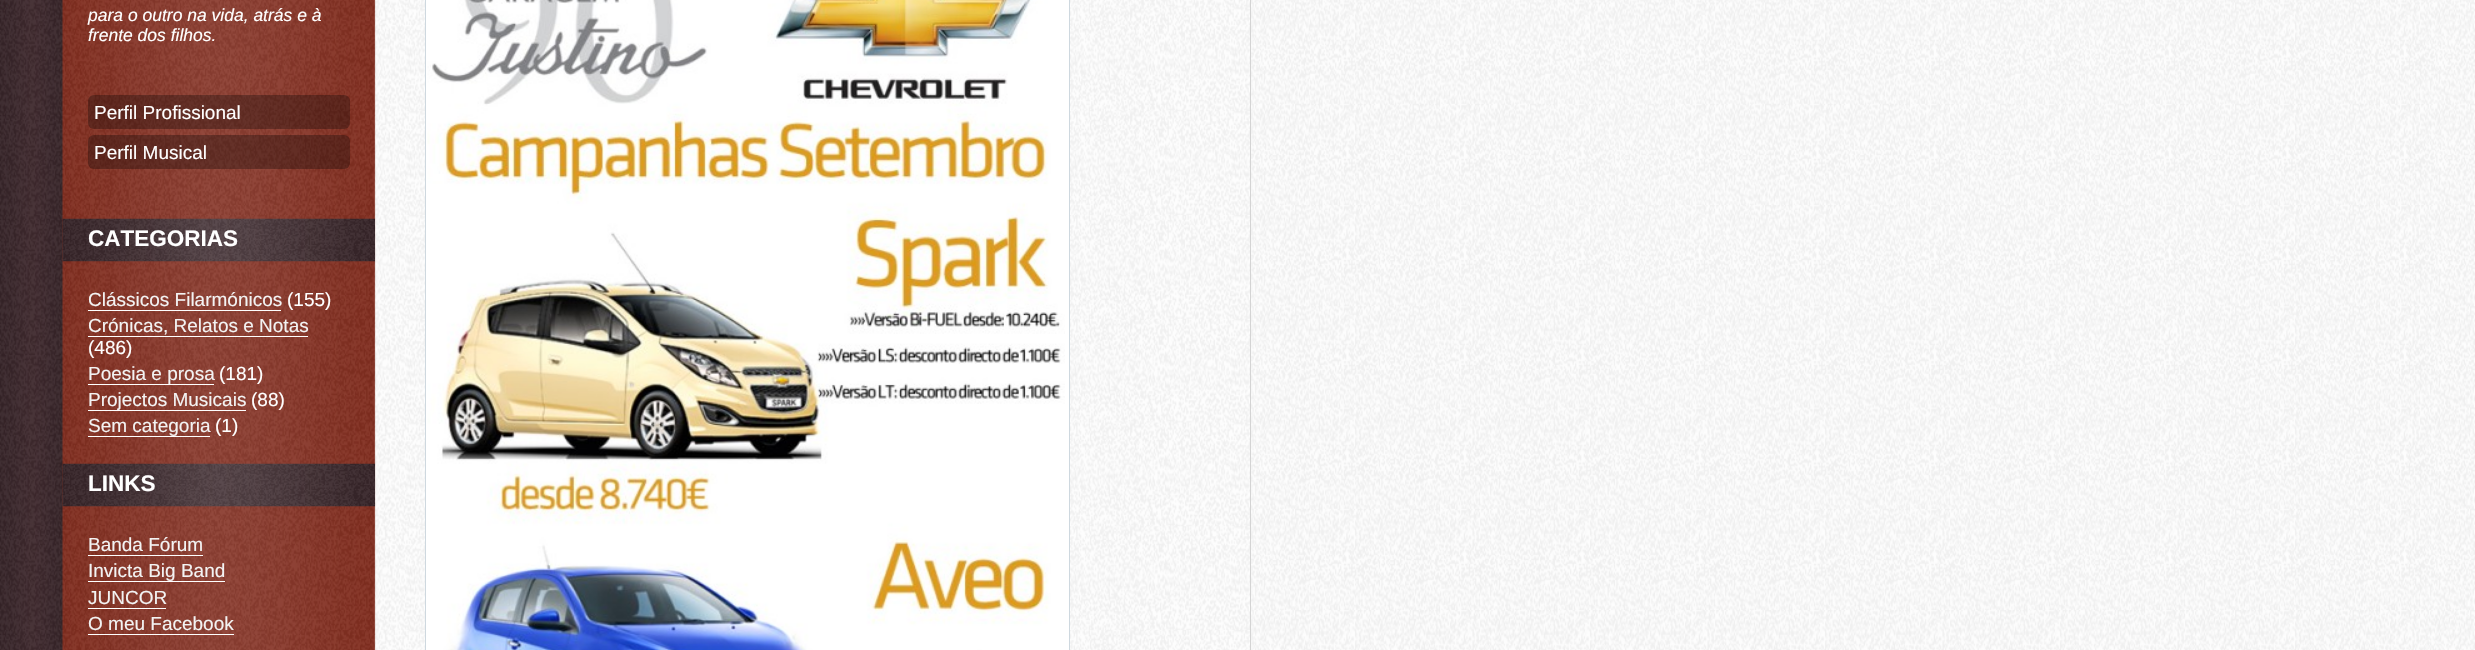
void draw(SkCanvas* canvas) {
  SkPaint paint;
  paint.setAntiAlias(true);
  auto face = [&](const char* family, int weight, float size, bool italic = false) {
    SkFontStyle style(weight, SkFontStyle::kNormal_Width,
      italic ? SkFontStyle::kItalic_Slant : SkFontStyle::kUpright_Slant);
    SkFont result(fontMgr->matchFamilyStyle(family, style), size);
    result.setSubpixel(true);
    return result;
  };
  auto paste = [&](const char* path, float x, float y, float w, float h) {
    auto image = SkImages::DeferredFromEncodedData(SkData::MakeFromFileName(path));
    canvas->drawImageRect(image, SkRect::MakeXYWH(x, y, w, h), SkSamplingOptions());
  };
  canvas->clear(0xffffffff);
  paste("img/1.png", 1251, 0, 1224, 650);
  paste("img/2.png", 0, 0, 1250, 650);
  paint.setColor(0xffd4d4d4);
  canvas->drawRect(SkRect::MakeXYWH(1250, 0, 1, 650), paint);
  paint.setColor(0x4d000000);
  canvas->drawRoundRect(SkRect::MakeXYWH(88, 95, 262, 34), 6, 6, paint);
  canvas->drawRoundRect(SkRect::MakeXYWH(88, 135, 262, 34), 6, 6, paint);
  paste("img/3.png", 62, 218, 313, 44);
  {
    const struct { float x, y, w, h; SkColor color; } items[] = {
      {88, 310, 193, 1, 0xffffffff},
      {88, 336, 220, 1, 0xffffffff},
      {88, 384, 126, 1, 0xffffffff},
      {88, 410, 158, 1, 0xffffffff},
      {88, 436, 122, 1, 0xffffffff},
    };
    for (auto [x, y, w, h, color] : items) {
      paint.setColor(color);
      canvas->drawRect(SkRect::MakeXYWH(x, y, w, h), paint);
    }
  }
  paste("img/4.png", 62, 463, 313, 44);
  {
    const struct { float x, y, w, h; SkColor color; } items[] = {
      {88, 555, 115, 1, 0xffffffff},
      {88, 581, 137, 1, 0xffffffff},
      {88, 608, 78, 1, 0xffffffff},
      {88, 634, 146, 1, 0xffffffff},
    };
    for (auto [x, y, w, h, color] : items) {
      paint.setColor(color);
      canvas->drawRect(SkRect::MakeXYWH(x, y, w, h), paint);
    }
  }
  canvas->drawRect(SkRect::MakeXYWH(425.5f, -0.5f, 644, 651), paint);
  paint.setStroke(true);
  paint.setStrokeWidth(1);
  paint.setColor(0xffced8df);
  canvas->drawRect(SkRect::MakeXYWH(425.5f, -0.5f, 644, 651), paint);
  paste("img/5.png", 427, 0, 638, 650);
  auto f0 = face("Liberation Sans", 400, 17.5f, true);
  paint.setStroke(false);
  paint.setColor(0xffffffff);
  canvas->drawString("para o outro na vida, atrás e à", 88, 21, f0, paint);
  canvas->drawString("frente dos filhos.", 88, 41, f0, paint);
  auto f1 = face("Liberation Sans", 400, 19);
  canvas->drawString("Perfil Profissional", 94, 119, f1, paint);
  canvas->drawString("Perfil Musical", 94, 159, f1, paint);
  auto f2 = face("Liberation Sans", 700, 22.5f);
  canvas->drawString("CATEGORIAS", 88, 246, f2, paint);
  paint.setColor(0xfff3f3f3);
  canvas->drawString("Clássicos Filarmónicos", 88, 306, f1, paint);
  paint.setColor(0xffffffff);
  canvas->drawString("(155)", 287, 306, f1, paint);
  paint.setColor(0xfff3f3f3);
  canvas->drawString("Crónicas, Relatos e Notas", 88, 332, f1, paint);
  paint.setColor(0xffffffff);
  canvas->drawString("(486)", 88, 354, f1, paint);
  paint.setColor(0xfff3f3f3);
  canvas->drawString("Poesia e prosa", 88, 380, f1, paint);
  paint.setColor(0xffffffff);
  canvas->drawString("(181)", 219, 380, f1, paint);
  paint.setColor(0xfff3f3f3);
  canvas->drawString("Projectos Musicais", 88, 406, f1, paint);
  paint.setColor(0xffffffff);
  canvas->drawString("(88)", 251, 406, f1, paint);
  paint.setColor(0xfff3f3f3);
  canvas->drawString("Sem categoria", 88, 432, f1, paint);
  paint.setColor(0xffffffff);
  canvas->drawString("(1)", 215, 432, f1, paint);
  canvas->drawString("LINKS", 88, 491, f2, paint);
  paint.setColor(0xfff3f3f3);
  {
    const struct { const char* s; float x, y; } items[] = {
      {"Banda Fórum", 88, 551},
      {"Invicta Big Band", 88, 577},
      {"JUNCOR", 88, 604},
      {"O meu Facebook", 88, 630},
    };
    for (auto [s, x, y] : items) {
      canvas->drawString(s, x, y, f1, paint);
    }
  }
}
